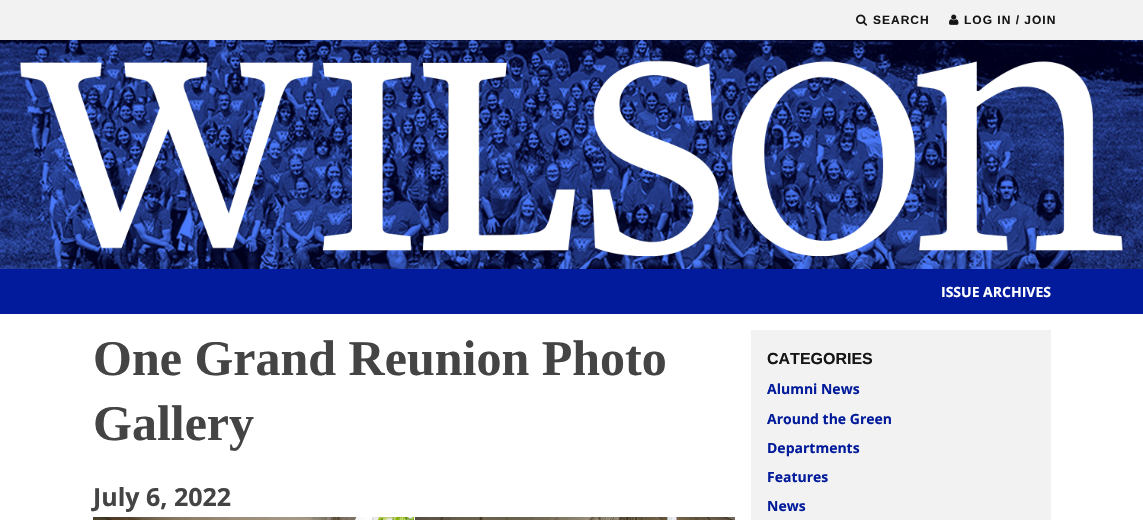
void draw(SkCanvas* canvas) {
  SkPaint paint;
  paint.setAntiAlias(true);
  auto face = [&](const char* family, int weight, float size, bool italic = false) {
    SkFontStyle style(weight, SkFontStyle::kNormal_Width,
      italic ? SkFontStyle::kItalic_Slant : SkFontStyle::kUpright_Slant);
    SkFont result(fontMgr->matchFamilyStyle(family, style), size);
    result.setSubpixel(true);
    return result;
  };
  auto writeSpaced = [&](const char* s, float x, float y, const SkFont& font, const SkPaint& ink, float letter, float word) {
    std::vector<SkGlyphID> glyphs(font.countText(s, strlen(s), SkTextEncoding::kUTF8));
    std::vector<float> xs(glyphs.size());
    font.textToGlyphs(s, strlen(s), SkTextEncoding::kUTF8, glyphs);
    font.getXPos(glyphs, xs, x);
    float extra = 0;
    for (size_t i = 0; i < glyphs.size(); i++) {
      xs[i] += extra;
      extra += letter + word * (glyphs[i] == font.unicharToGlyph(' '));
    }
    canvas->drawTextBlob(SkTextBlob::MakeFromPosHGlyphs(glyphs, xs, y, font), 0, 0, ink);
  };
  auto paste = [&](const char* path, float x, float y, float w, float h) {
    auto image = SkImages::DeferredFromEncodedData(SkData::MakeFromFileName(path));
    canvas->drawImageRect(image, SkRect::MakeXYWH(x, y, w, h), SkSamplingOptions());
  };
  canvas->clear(0xffffffff);
  paint.setColor(0xfff2f2f2);
  canvas->drawRect(SkRect::MakeXYWH(0, 0, 1143, 40), paint);
  paste("img/1.png", 856, 14, 12, 12);
  paste("img/2.png", 949, 14, 10, 11);
  paste("img/3.png", 0, 40, 1143, 229);
  paint.setColor(0xff021b9c);
  canvas->drawRect(SkRect::MakeXYWH(0, 269, 1143, 45), paint);
  paste("img/4.png", 93, 517, 321, 3);
  paste("img/5.png", 415, 517, 320, 3);
  paint.setColor(0xfff2f2f2);
  canvas->drawRect(SkRect::MakeXYWH(751, 330, 300, 190), paint);
  auto f0 = face("Liberation Sans", 700, 12);
  paint.setColor(0xff161616);
  writeSpaced("SEARCH", 873, 24, f0, paint, 1, 0);
  writeSpaced("LOG IN / JOIN", 964, 24, f0, paint, 1, 0);
  auto f1 = face("Open Sans", 700, 14);
  paint.setColor(0xffffffff);
  canvas->drawString("ISSUE ARCHIVES", 941, 297, f1, paint);
  auto f2 = face("Liberation Serif", 700, 50);
  paint.setColor(0xff444444);
  canvas->drawString("One Grand Reunion Photo", 93, 375, f2, paint);
  canvas->drawString("Gallery", 93, 440, f2, paint);
  auto f3 = face("Open Sans", 700, 25);
  canvas->drawString("July 6, 2022", 93, 506, f3, paint);
  auto f4 = face("Liberation Sans", 700, 16);
  paint.setColor(0xff161616);
  canvas->drawString("CATEGORIES", 767, 364, f4, paint);
  paint.setColor(0xff021b9b);
  {
    const struct { const char* s; float x, y; } items[] = {
      {"Alumni News", 767, 394},
      {"Around the Green", 767, 424},
      {"Departments", 767, 453},
      {"Features", 767, 482},
      {"News", 767, 511},
    };
    for (auto [s, x, y] : items) {
      canvas->drawString(s, x, y, f1, paint);
    }
  }
}
